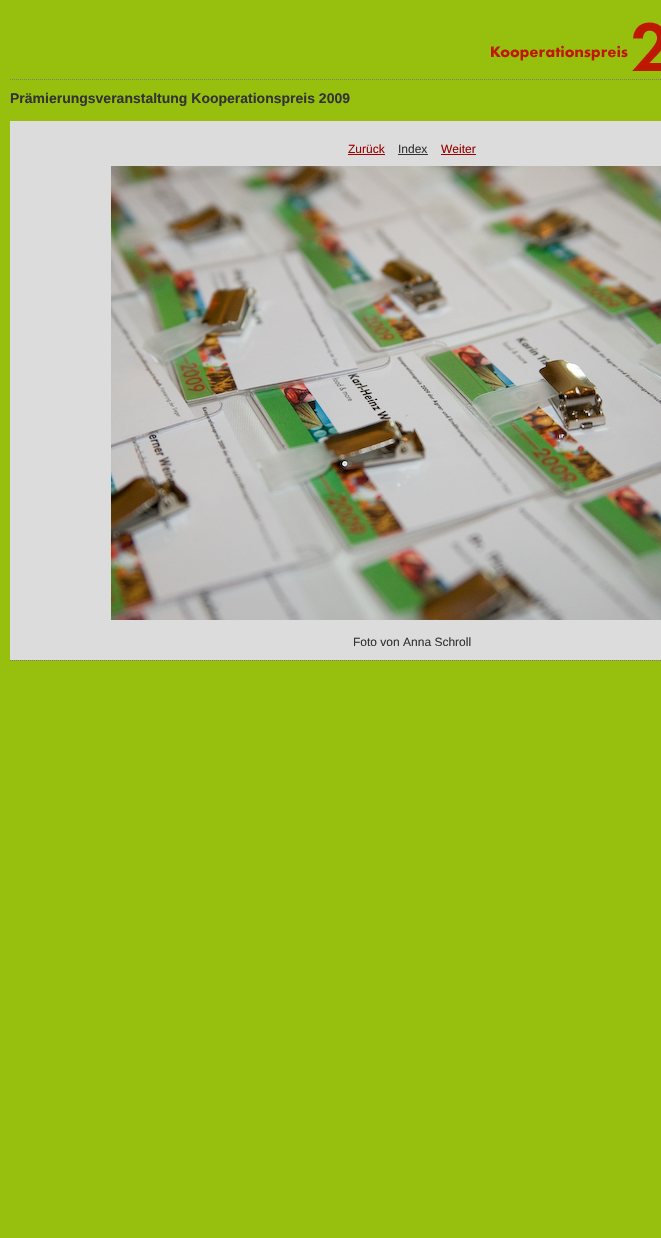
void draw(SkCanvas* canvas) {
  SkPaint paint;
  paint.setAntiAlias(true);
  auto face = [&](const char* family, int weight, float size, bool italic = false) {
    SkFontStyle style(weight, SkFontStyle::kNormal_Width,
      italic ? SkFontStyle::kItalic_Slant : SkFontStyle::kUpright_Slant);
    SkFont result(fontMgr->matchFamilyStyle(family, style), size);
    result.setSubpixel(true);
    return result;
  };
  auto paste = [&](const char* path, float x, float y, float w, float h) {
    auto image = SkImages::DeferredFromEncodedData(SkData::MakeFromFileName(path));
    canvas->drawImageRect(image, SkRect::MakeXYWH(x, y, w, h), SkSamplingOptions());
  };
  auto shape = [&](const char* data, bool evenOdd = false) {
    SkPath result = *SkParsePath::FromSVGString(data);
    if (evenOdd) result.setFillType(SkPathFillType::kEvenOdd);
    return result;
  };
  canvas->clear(0xff97c00e);
  paste("img/1.png", 491, 22, 170, 49);
  paint.setStroke(true);
  paint.setStrokeWidth(1);
  paint.setColor(0xff7f7f7f);
  paint.setPathEffect(SkDashPathEffect::Make({{1, 1}}, 0));
  canvas->drawPath(shape("M10 79.5H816"), paint);
  paint.setPathEffect(nullptr);
  paint.setPathEffect(SkDashPathEffect::Make({{1, 1}}, 0));
  canvas->drawPath(shape("M10 660.5H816"), paint);
  paint.setPathEffect(nullptr);
  paint.setStroke(false);
  {
    const struct { float x, y, w, h; SkColor color; } items[] = {
      {10, 121, 651, 539, 0xffdcdcdc},
      {348, 154, 37, 1, 0xff990000},
      {398, 154, 30, 1, 0xff333333},
      {441, 154, 35, 1, 0xff990000},
    };
    for (auto [x, y, w, h, color] : items) {
      paint.setColor(color);
      canvas->drawRect(SkRect::MakeXYWH(x, y, w, h), paint);
    }
  }
  paste("img/2.png", 111, 166, 550, 454);
  auto f0 = face("Liberation Sans", 700, 14);
  paint.setColor(0xff333333);
  canvas->drawString("Prämierungsveranstaltung Kooperationspreis 2009", 10, 103, f0, paint);
  auto f1 = face("Liberation Sans", 400, 12);
  paint.setColor(0xff990000);
  canvas->drawString("Zurück", 348, 153, f1, paint);
  paint.setColor(0xff333333);
  canvas->drawString("Index", 398, 153, f1, paint);
  paint.setColor(0xff990000);
  canvas->drawString("Weiter", 441, 153, f1, paint);
  paint.setColor(0xff333333);
  canvas->drawString("Foto von Anna Schroll", 353, 646, f1, paint);
}
